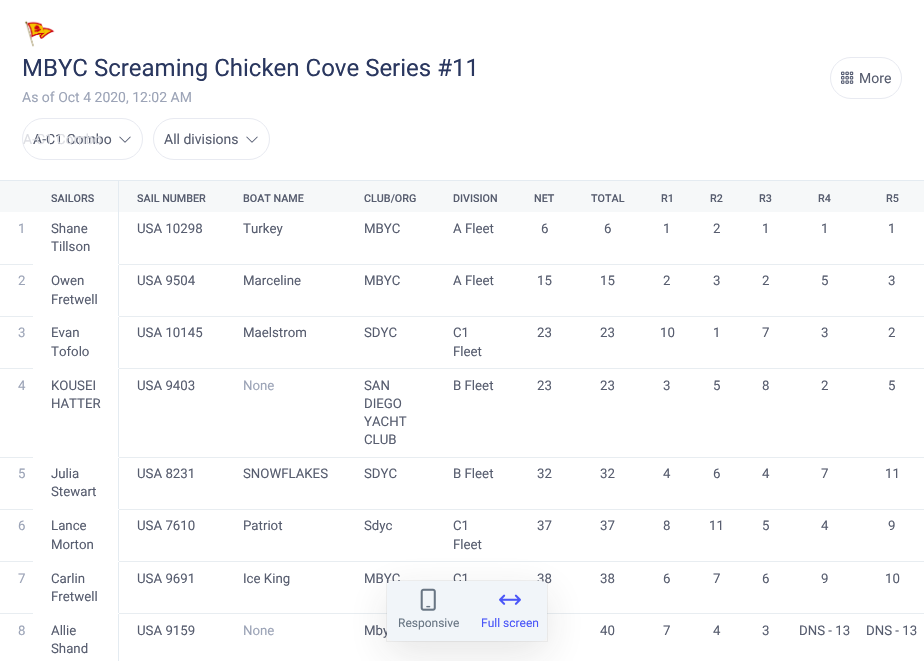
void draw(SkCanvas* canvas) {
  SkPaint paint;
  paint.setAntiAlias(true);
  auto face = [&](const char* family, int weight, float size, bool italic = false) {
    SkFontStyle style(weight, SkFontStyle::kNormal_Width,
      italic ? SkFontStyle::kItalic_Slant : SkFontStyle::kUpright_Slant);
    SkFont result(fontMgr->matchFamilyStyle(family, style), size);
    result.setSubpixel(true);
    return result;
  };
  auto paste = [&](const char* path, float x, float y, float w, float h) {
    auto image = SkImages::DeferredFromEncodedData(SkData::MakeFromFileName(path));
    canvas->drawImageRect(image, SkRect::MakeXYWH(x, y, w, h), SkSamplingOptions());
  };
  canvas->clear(0xffffffff);
  paint.setColor(0xffe4ebf1);
  canvas->drawRect(SkRect::MakeXYWH(0, 180, 924, 1), paint);
  paste("img/1.png", 24, 20, 31, 27);
  paint.setStroke(true);
  paint.setStrokeWidth(1);
  paint.setColor(0xffe8eaf1);
  canvas->drawRoundRect(SkRect::MakeXYWH(830.5f, 57.5f, 71, 41), 20.5f, 20.5f, paint);
  paste("img/2.png", 841, 71, 13, 13);
  canvas->drawRoundRect(SkRect::MakeXYWH(22.5f, 118.5f, 120, 41), 20.5f, 20.5f, paint);
  paste("img/3.png", 119, 136, 12, 7);
  canvas->drawRoundRect(SkRect::MakeXYWH(153.5f, 118.5f, 116, 41), 20.5f, 20.5f, paint);
  paste("img/3.png", 246, 136, 12, 7);
  paint.setStroke(false);
  {
    const struct { float x, y, w, h; SkColor color; } items[] = {
      {0, 181, 924, 31, 0xfff6f8f9},
      {118, 181, 1, 83, 0xffe4ebf1},
      {0, 264, 924, 1, 0xffe8edf1},
      {0, 316, 924, 1, 0xffe8edf1},
      {33, 264, 86, 1, 0xffffffff},
      {118, 265, 1, 51, 0xffe4ebf1},
      {0, 368, 924, 1, 0xffe8edf1},
      {33, 316, 86, 53, 0xffffffff},
      {118, 317, 1, 51, 0xffe4ebf1},
      {0, 457, 924, 1, 0xffe8edf1},
      {118, 369, 1, 88, 0xffe4ebf1},
      {0, 509, 924, 1, 0xffe8edf1},
      {33, 457, 86, 1, 0xffffffff},
      {118, 458, 1, 51, 0xffe4ebf1},
      {0, 561, 924, 1, 0xffe8edf1},
      {33, 509, 86, 1, 0xffffffff},
      {118, 510, 1, 51, 0xffe4ebf1},
      {0, 613, 924, 1, 0xffe8edf1},
      {33, 561, 86, 53, 0xffffffff},
      {118, 562, 1, 51, 0xffe4ebf1},
      {118, 614, 1, 47, 0xffe4ebf1},
    };
    for (auto [x, y, w, h, color] : items) {
      paint.setColor(color);
      canvas->drawRect(SkRect::MakeXYWH(x, y, w, h), paint);
    }
  }
  auto f0 = face("Roboto", 400, 24);
  paint.setColor(0xff2a375f);
  canvas->drawString("MBYC Screaming Chicken Cove Series #11", 22, 76, f0, paint);
  auto f1 = face("Roboto", 400, 14);
  paint.setColor(0xff9ca4b7);
  canvas->drawString("As of Oct 4 2020, 12:02 AM", 22, 102, f1, paint);
  paint.setColor(0xff575d6f);
  canvas->drawString("More", 859, 83, f1, paint);
  canvas->drawString("A-C1 Combo", 33, 144, f1, paint);
  paint.setColor(0xffdddee3);
  canvas->drawString("A-C1 Combo", 23, 144, f1, paint);
  paint.setColor(0xff575d6f);
  canvas->drawString("All divisions", 164, 144, f1, paint);
  auto f2 = face("Roboto", 500, 10.75f);
  {
    const struct { const char* s; float x, y; } items[] = {
      {"SAILORS", 51, 202},
      {"SAIL NUMBER", 137, 202},
      {"BOAT NAME", 243, 202},
      {"CLUB/ORG", 364, 202},
      {"DIVISION", 453, 202},
      {"NET", 534, 202},
      {"TOTAL", 591, 202},
      {"R1", 661, 202},
      {"R2", 710, 202},
      {"R3", 759, 202},
      {"R4", 818, 202},
      {"R5", 886, 202},
    };
    for (auto [s, x, y] : items) {
      canvas->drawString(s, x, y, f2, paint);
    }
  }
  auto f3 = face("Roboto", 400, 13.25f);
  paint.setColor(0xff9ca4b7);
  canvas->drawString("1", 18, 233, f3, paint);
  paint.setColor(0xff575d6f);
  {
    const struct { const char* s; float x, y; } items[] = {
      {"Shane", 51, 233},
      {"Tillson", 51, 251},
      {"USA 10298", 137, 233},
      {"Turkey", 243, 233},
      {"MBYC", 364, 233},
      {"A Fleet", 453, 233},
      {"6", 541, 233},
      {"6", 604, 233},
      {"1", 663, 233},
      {"2", 713, 233},
      {"1", 762, 233},
      {"1", 821, 233},
      {"1", 888, 233},
    };
    for (auto [s, x, y] : items) {
      canvas->drawString(s, x, y, f3, paint);
    }
  }
  paint.setColor(0xff9ca4b7);
  canvas->drawString("2", 18, 285, f3, paint);
  paint.setColor(0xff575d6f);
  {
    const struct { const char* s; float x, y; } items[] = {
      {"Owen", 51, 285},
      {"Fretwell", 51, 304},
      {"USA 9504", 137, 285},
      {"Marceline", 243, 285},
      {"MBYC", 364, 285},
      {"A Fleet", 453, 285},
      {"15", 537, 285},
      {"15", 600, 285},
      {"2", 663, 285},
      {"3", 713, 285},
      {"2", 762, 285},
      {"5", 821, 285},
      {"3", 888, 285},
    };
    for (auto [s, x, y] : items) {
      canvas->drawString(s, x, y, f3, paint);
    }
  }
  paint.setColor(0xff9ca4b7);
  canvas->drawString("3", 18, 337, f3, paint);
  paint.setColor(0xff575d6f);
  {
    const struct { const char* s; float x, y; } items[] = {
      {"Evan", 51, 337},
      {"Tofolo", 51, 356},
      {"USA 10145", 137, 337},
      {"Maelstrom", 243, 337},
      {"SDYC", 364, 337},
      {"C1", 453, 337},
      {"Fleet", 453, 356},
      {"23", 537, 337},
      {"23", 600, 337},
      {"10", 660, 337},
      {"1", 713, 337},
      {"7", 762, 337},
      {"3", 821, 337},
      {"2", 888, 337},
    };
    for (auto [s, x, y] : items) {
      canvas->drawString(s, x, y, f3, paint);
    }
  }
  paint.setColor(0xff9ca4b7);
  canvas->drawString("4", 18, 390, f3, paint);
  paint.setColor(0xff575d6f);
  {
    const struct { const char* s; float x, y; } items[] = {
      {"KOUSEI", 51, 390},
      {"HATTER", 51, 408},
      {"USA 9403", 137, 390},
    };
    for (auto [s, x, y] : items) {
      canvas->drawString(s, x, y, f3, paint);
    }
  }
  paint.setColor(0xff9ca4b7);
  canvas->drawString("None", 243, 390, f3, paint);
  paint.setColor(0xff575d6f);
  {
    const struct { const char* s; float x, y; } items[] = {
      {"SAN", 364, 390},
      {"DIEGO", 364, 408},
      {"YACHT", 364, 426},
      {"CLUB", 364, 444},
      {"B Fleet", 453, 390},
      {"23", 537, 390},
      {"23", 600, 390},
      {"3", 663, 390},
      {"5", 713, 390},
      {"8", 762, 390},
      {"2", 821, 390},
      {"5", 888, 390},
    };
    for (auto [s, x, y] : items) {
      canvas->drawString(s, x, y, f3, paint);
    }
  }
  paint.setColor(0xff9ca4b7);
  canvas->drawString("5", 18, 478, f3, paint);
  paint.setColor(0xff575d6f);
  {
    const struct { const char* s; float x, y; } items[] = {
      {"Julia", 51, 478},
      {"Stewart", 51, 496},
      {"USA 8231", 137, 478},
      {"SNOWFLAKES", 243, 478},
      {"SDYC", 364, 478},
      {"B Fleet", 453, 478},
      {"32", 537, 478},
      {"32", 600, 478},
      {"4", 663, 478},
      {"6", 713, 478},
      {"4", 762, 478},
      {"7", 821, 478},
      {"11", 885, 478},
    };
    for (auto [s, x, y] : items) {
      canvas->drawString(s, x, y, f3, paint);
    }
  }
  paint.setColor(0xff9ca4b7);
  canvas->drawString("6", 18, 530, f3, paint);
  paint.setColor(0xff575d6f);
  {
    const struct { const char* s; float x, y; } items[] = {
      {"Lance", 51, 530},
      {"Morton", 51, 549},
      {"USA 7610", 137, 530},
      {"Patriot", 243, 530},
      {"Sdyc", 364, 530},
      {"C1", 453, 530},
      {"Fleet", 453, 549},
      {"37", 537, 530},
      {"37", 600, 530},
      {"8", 663, 530},
      {"11", 709, 530},
      {"5", 762, 530},
      {"4", 821, 530},
      {"9", 888, 530},
    };
    for (auto [s, x, y] : items) {
      canvas->drawString(s, x, y, f3, paint);
    }
  }
  paint.setColor(0xff9ca4b7);
  canvas->drawString("7", 18, 583, f3, paint);
  paint.setColor(0xff575d6f);
  {
    const struct { const char* s; float x, y; } items[] = {
      {"Carlin", 51, 583},
      {"Fretwell", 51, 601},
      {"USA 9691", 137, 583},
      {"Ice King", 243, 583},
      {"MBYC", 364, 583},
      {"C1", 453, 583},
      {"38", 537, 583},
      {"38", 600, 583},
      {"6", 663, 583},
      {"7", 713, 583},
      {"6", 762, 583},
      {"9", 821, 583},
      {"10", 885, 583},
    };
    for (auto [s, x, y] : items) {
      canvas->drawString(s, x, y, f3, paint);
    }
  }
  paint.setColor(0xff9ca4b7);
  canvas->drawString("8", 18, 635, f3, paint);
  paint.setColor(0xff575d6f);
  {
    const struct { const char* s; float x, y; } items[] = {
      {"Allie", 51, 635},
      {"Shand", 51, 653},
      {"USA 9159", 137, 635},
    };
    for (auto [s, x, y] : items) {
      canvas->drawString(s, x, y, f3, paint);
    }
  }
  paint.setColor(0xff9ca4b7);
  canvas->drawString("None", 243, 635, f3, paint);
  paint.setColor(0xff575d6f);
  {
    const struct { const char* s; float x, y; } items[] = {
      {"Mby", 364, 635},
      {"40", 600, 635},
      {"7", 663, 635},
      {"4", 713, 635},
      {"3", 762, 635},
      {"DNS - 13", 799, 635},
      {"DNS - 13", 866, 635},
    };
    for (auto [s, x, y] : items) {
      canvas->drawString(s, x, y, f3, paint);
    }
  }
  paint.setStroke(true);
  paint.setColor(0x0d000000);
  canvas->drawRect(SkRect::MakeXYWH(386.5f, 580.5f, 161, 61), paint);
  paint.setStroke(false);
  paint.setColor(0x1f282829);
  paint.setMaskFilter(SkMaskFilter::MakeBlur(kNormal_SkBlurStyle, 20));
  canvas->drawRoundRect(SkRect::MakeXYWH(387, 593, 160, 60), 6, 6, paint);
  paint.setMaskFilter(nullptr);
  paint.setColor(0xfff1f5f9);
  canvas->drawRoundRect(SkRect::MakeXYWH(387, 581, 160, 60), 6, 6, paint);
  paste("img/4.png", 420, 588, 16, 23);
  auto f4 = face("Roboto", 400, 12);
  paint.setColor(0xff697684);
  canvas->drawString("Responsive", 398, 627, f4, paint);
  paste("img/5.png", 499, 594, 22, 11);
  paint.setColor(0xff4a56f8);
  canvas->drawString("Full screen", 481, 627, f4, paint);
}
